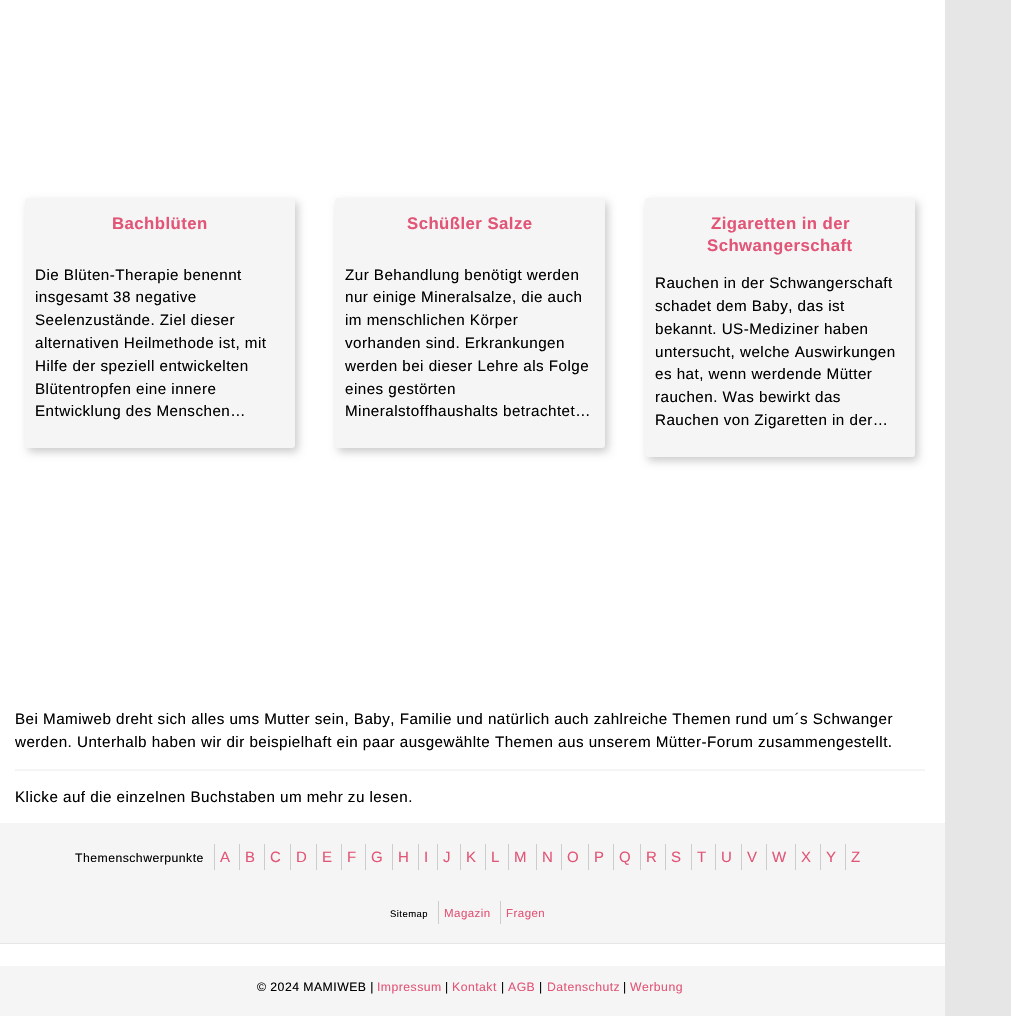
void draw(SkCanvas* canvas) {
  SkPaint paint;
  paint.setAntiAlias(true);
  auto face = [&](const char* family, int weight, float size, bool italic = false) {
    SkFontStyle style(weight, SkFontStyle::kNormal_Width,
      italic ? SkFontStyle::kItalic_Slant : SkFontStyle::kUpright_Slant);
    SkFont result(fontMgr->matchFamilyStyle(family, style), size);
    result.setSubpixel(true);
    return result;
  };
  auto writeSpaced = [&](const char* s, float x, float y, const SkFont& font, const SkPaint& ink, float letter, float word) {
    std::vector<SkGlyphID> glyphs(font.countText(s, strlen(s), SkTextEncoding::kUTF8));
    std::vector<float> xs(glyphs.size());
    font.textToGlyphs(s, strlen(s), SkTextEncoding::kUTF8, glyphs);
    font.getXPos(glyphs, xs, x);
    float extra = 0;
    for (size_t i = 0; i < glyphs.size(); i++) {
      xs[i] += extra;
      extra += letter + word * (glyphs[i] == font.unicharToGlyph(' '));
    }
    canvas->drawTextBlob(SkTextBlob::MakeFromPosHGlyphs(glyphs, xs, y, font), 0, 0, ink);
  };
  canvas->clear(0xffe6e6e6);
  paint.setColor(0xffffffff);
  canvas->drawRect(SkRect::MakeXYWH(0, 0, 945, 966), paint);
  paint.setColor(0xffcccccc);
  paint.setMaskFilter(SkMaskFilter::MakeBlur(kNormal_SkBlurStyle, 4));
  canvas->drawRoundRect(SkRect::MakeXYWH(28, 202, 270, 250), 3, 3, paint);
  paint.setMaskFilter(nullptr);
  paint.setColor(0xfff5f5f5);
  canvas->drawRoundRect(SkRect::MakeXYWH(25, 198, 270, 250), 3, 3, paint);
  paint.setColor(0xffcccccc);
  paint.setMaskFilter(SkMaskFilter::MakeBlur(kNormal_SkBlurStyle, 4));
  canvas->drawRoundRect(SkRect::MakeXYWH(338, 202, 270, 250), 3, 3, paint);
  paint.setMaskFilter(nullptr);
  paint.setColor(0xfff5f5f5);
  canvas->drawRoundRect(SkRect::MakeXYWH(335, 198, 270, 250), 3, 3, paint);
  paint.setColor(0xffcccccc);
  paint.setMaskFilter(SkMaskFilter::MakeBlur(kNormal_SkBlurStyle, 4));
  canvas->drawRoundRect(SkRect::MakeXYWH(648, 202, 270, 259), 3, 3, paint);
  paint.setMaskFilter(nullptr);
  paint.setColor(0xfff5f5f5);
  canvas->drawRoundRect(SkRect::MakeXYWH(645, 198, 270, 259), 3, 3, paint);
  {
    const struct { float x, y, w, h; SkColor color; } items[] = {
      {15, 769, 910, 2, 0xfff5f5f5},
      {0, 823, 945, 120, 0xfff5f5f5},
      {0, 943, 945, 1, 0xffe6e6e6},
      {214, 844, 1, 26, 0xffcccccc},
      {239, 844, 1, 26, 0xffcccccc},
      {264, 844, 1, 26, 0xffcccccc},
      {290, 844, 1, 26, 0xffcccccc},
      {316, 844, 1, 26, 0xffcccccc},
      {341, 844, 1, 26, 0xffcccccc},
      {365, 844, 1, 26, 0xffcccccc},
      {392, 844, 1, 26, 0xffcccccc},
      {418, 844, 1, 26, 0xffcccccc},
      {437, 844, 1, 26, 0xffcccccc},
      {460, 844, 1, 26, 0xffcccccc},
      {485, 844, 1, 26, 0xffcccccc},
      {508, 844, 1, 26, 0xffcccccc},
      {536, 844, 1, 26, 0xffcccccc},
      {561, 844, 1, 26, 0xffcccccc},
      {588, 844, 1, 26, 0xffcccccc},
      {613, 844, 1, 26, 0xffcccccc},
      {640, 844, 1, 26, 0xffcccccc},
      {665, 844, 1, 26, 0xffcccccc},
      {691, 844, 1, 26, 0xffcccccc},
      {715, 844, 1, 26, 0xffcccccc},
      {741, 844, 1, 26, 0xffcccccc},
      {766, 844, 1, 26, 0xffcccccc},
      {795, 844, 1, 26, 0xffcccccc},
      {820, 844, 1, 26, 0xffcccccc},
      {845, 844, 1, 26, 0xffcccccc},
      {438, 901, 1, 23, 0xffcccccc},
      {500, 901, 1, 23, 0xffcccccc},
      {0, 966, 945, 50, 0xfff5f5f5},
    };
    for (auto [x, y, w, h, color] : items) {
      paint.setColor(color);
      canvas->drawRect(SkRect::MakeXYWH(x, y, w, h), paint);
    }
  }
  auto f0 = face("Liberation Sans", 700, 16.75f);
  paint.setColor(0xffe25577);
  writeSpaced("Bachblüten", 112, 229, f0, paint, 0.46f, 0);
  auto f1 = face("Liberation Sans", 400, 15.2f);
  paint.setColor(0xff000000);
  {
    const struct { const char* s; float x, y; } items[] = {
      {"Die Blüten-Therapie benennt", 35, 280},
      {"insgesamt 38 negative", 35, 302},
      {"Seelenzustände. Ziel dieser", 35, 325},
      {"alternativen Heilmethode ist, mit", 35, 348},
      {"Hilfe der speziell entwickelten", 35, 371},
      {"Blütentropfen eine innere", 35, 394},
      {"Entwicklung des Menschen…", 35, 416},
    };
    for (auto [s, x, y] : items) {
      writeSpaced(s, x, y, f1, paint, 0.46f, 0);
    }
  }
  paint.setColor(0xffe25577);
  writeSpaced("Schüßler Salze", 407, 229, f0, paint, 0.46f, 0);
  paint.setColor(0xff000000);
  {
    const struct { const char* s; float x, y; } items[] = {
      {"Zur Behandlung benötigt werden", 345, 280},
      {"nur einige Mineralsalze, die auch", 345, 302},
      {"im menschlichen Körper", 345, 325},
      {"vorhanden sind. Erkrankungen", 345, 348},
      {"werden bei dieser Lehre als Folge", 345, 371},
      {"eines gestörten", 345, 394},
      {"Mineralstoffhaushalts betrachtet…", 345, 416},
    };
    for (auto [s, x, y] : items) {
      writeSpaced(s, x, y, f1, paint, 0.46f, 0);
    }
  }
  paint.setColor(0xffe25577);
  writeSpaced("Zigaretten in der", 711, 229, f0, paint, 0.46f, 0);
  writeSpaced("Schwangerschaft", 707, 251, f0, paint, 0.46f, 0);
  paint.setColor(0xff000000);
  {
    const struct { const char* s; float x, y; } items[] = {
      {"Rauchen in der Schwangerschaft", 655, 288},
      {"schadet dem Baby, das ist", 655, 311},
      {"bekannt. US-Mediziner haben", 655, 334},
      {"untersucht, welche Auswirkungen", 655, 357},
      {"es hat, wenn werdende Mütter", 655, 379},
      {"rauchen. Was bewirkt das", 655, 402},
      {"Rauchen von Zigaretten in der…", 655, 425},
      {"Bei Mamiweb dreht sich alles ums Mutter sein, Baby, Familie und natürlich auch zahlreiche Themen rund um´s Schwanger", 15, 724},
      {"werden. Unterhalb haben wir dir beispielhaft ein paar ausgewählte Themen aus unserem Mütter-Forum zusammengestellt.", 15, 747},
      {"Klicke auf die einzelnen Buchstaben um mehr zu lesen.", 15, 802},
    };
    for (auto [s, x, y] : items) {
      writeSpaced(s, x, y, f1, paint, 0.46f, 0);
    }
  }
  auto f2 = face("Liberation Sans", 400, 12.25f);
  writeSpaced("Themenschwerpunkte", 75, 862, f2, paint, 0.46f, 0);
  auto f3 = face("Liberation Sans", 400, 15);
  paint.setColor(0xffe25577);
  {
    const struct { const char* s; float x, y; } items[] = {
      {"A", 220, 862},
      {"B", 245, 862},
      {"C", 270, 862},
      {"D", 296, 862},
      {"E", 322, 862},
      {"F", 347, 862},
      {"G", 371, 862},
      {"H", 398, 862},
      {"I", 424, 862},
      {"J", 443, 862},
      {"K", 466, 862},
      {"L", 491, 862},
      {"M", 514, 862},
      {"N", 542, 862},
      {"O", 567, 862},
      {"P", 594, 862},
      {"Q", 619, 862},
      {"R", 646, 862},
      {"S", 671, 862},
      {"T", 697, 862},
      {"U", 721, 862},
      {"V", 747, 862},
      {"W", 772, 862},
      {"X", 801, 862},
      {"Y", 826, 862},
      {"Z", 851, 862},
    };
    for (auto [s, x, y] : items) {
      writeSpaced(s, x, y, f3, paint, 0.46f, 0);
    }
  }
  auto f4 = face("Liberation Sans", 400, 9.5f);
  paint.setColor(0xff000000);
  writeSpaced("Sitemap", 390, 917, f4, paint, 0.46f, 0);
  auto f5 = face("Liberation Sans", 400, 11.5f);
  paint.setColor(0xffe25577);
  writeSpaced("Magazin", 444, 917, f5, paint, 0.46f, 0);
  writeSpaced("Fragen", 506, 917, f5, paint, 0.46f, 0);
  paint.setColor(0xff000000);
  writeSpaced("© 2024 MAMIWEB |", 257, 991, f2, paint, 0.46f, 0);
  paint.setColor(0xffe25577);
  writeSpaced("Impressum", 377, 991, f2, paint, 0.46f, 0);
  paint.setColor(0xff000000);
  writeSpaced("|", 445, 991, f2, paint, 0.46f, 0);
  paint.setColor(0xffe25577);
  writeSpaced("Kontakt", 452, 991, f2, paint, 0.46f, 0);
  paint.setColor(0xff000000);
  writeSpaced("|", 501, 991, f2, paint, 0.46f, 0);
  paint.setColor(0xffe25577);
  writeSpaced("AGB", 508, 991, f2, paint, 0.46f, 0);
  paint.setColor(0xff000000);
  writeSpaced("|", 539, 991, f2, paint, 0.46f, 0);
  paint.setColor(0xffe25577);
  writeSpaced("Datenschutz", 547, 991, f2, paint, 0.46f, 0);
  paint.setColor(0xff000000);
  writeSpaced("|", 623, 991, f2, paint, 0.46f, 0);
  paint.setColor(0xffe25577);
  writeSpaced("Werbung", 630, 991, f2, paint, 0.46f, 0);
}
